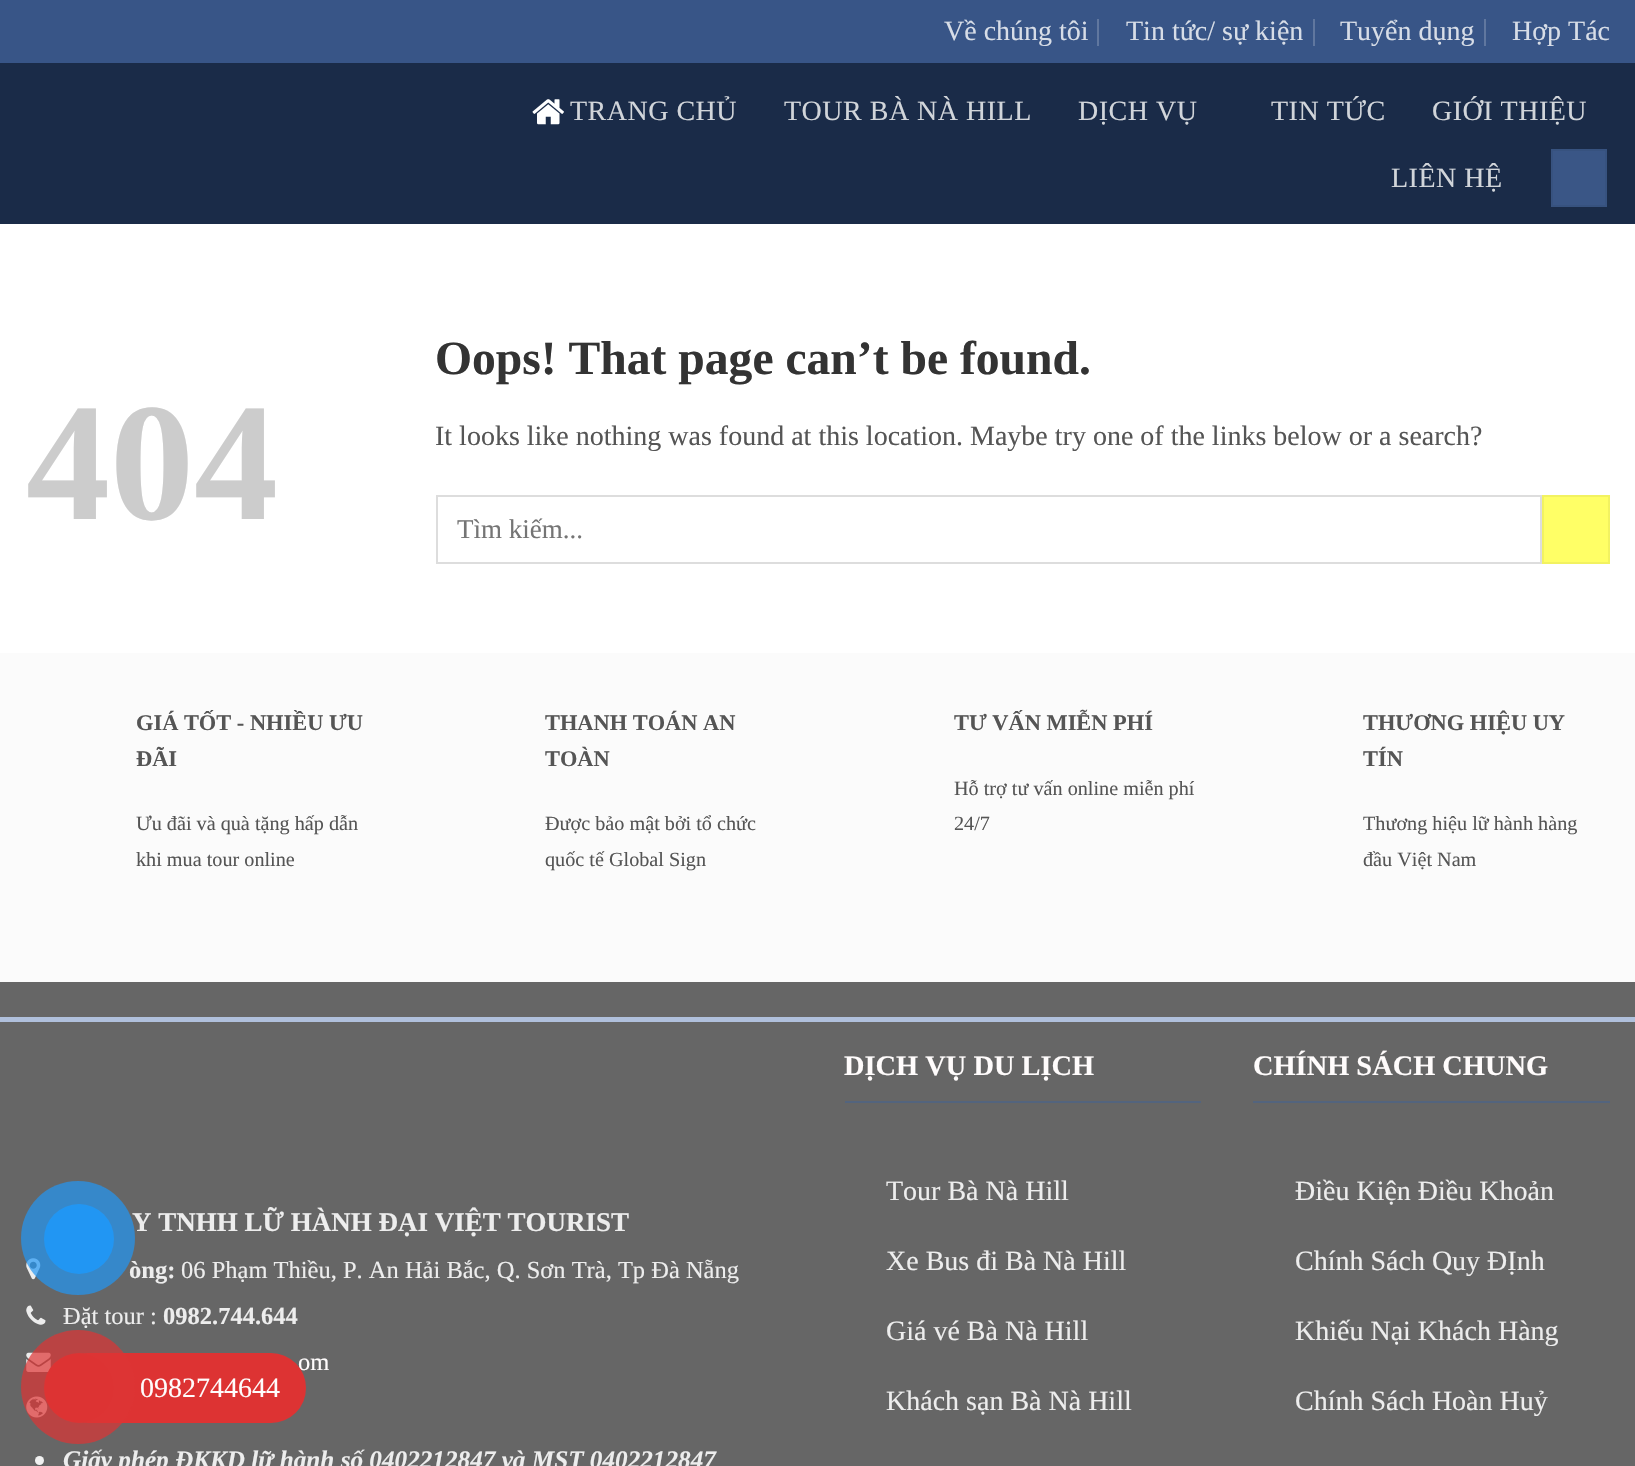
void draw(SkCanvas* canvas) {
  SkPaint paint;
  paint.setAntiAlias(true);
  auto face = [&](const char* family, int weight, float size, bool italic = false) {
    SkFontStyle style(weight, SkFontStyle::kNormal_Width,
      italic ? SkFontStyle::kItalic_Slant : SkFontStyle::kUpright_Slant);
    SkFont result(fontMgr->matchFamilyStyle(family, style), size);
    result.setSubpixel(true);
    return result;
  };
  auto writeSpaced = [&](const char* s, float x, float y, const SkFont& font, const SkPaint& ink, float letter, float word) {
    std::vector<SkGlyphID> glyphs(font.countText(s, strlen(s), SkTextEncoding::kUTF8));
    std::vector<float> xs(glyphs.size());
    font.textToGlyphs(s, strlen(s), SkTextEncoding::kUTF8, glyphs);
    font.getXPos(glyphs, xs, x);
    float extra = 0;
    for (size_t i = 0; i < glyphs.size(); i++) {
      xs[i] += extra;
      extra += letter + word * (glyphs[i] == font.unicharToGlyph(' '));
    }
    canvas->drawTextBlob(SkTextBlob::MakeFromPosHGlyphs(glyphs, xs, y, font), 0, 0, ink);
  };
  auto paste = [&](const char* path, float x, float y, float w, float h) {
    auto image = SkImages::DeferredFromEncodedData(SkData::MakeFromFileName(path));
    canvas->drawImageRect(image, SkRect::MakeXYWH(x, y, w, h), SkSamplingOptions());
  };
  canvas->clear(0xffffffff);
  {
    const struct { float x, y, w, h; SkColor color; } items[] = {
      {0, 0, 1635, 63, 0xff385587},
      {1097, 19, 2, 27, 0xff60779f},
      {1313, 19, 2, 27, 0xff60779f},
      {1484, 19, 2, 27, 0xff60779f},
      {0, 63, 1635, 161, 0xff1a2b48},
    };
    for (auto [x, y, w, h, color] : items) {
      paint.setColor(color);
      canvas->drawRect(SkRect::MakeXYWH(x, y, w, h), paint);
    }
  }
  paste("img/1.png", 532, 99, 32, 26);
  paint.setColor(0xff3a5686);
  canvas->drawRect(SkRect::MakeXYWH(1552, 150, 54, 56), paint);
  paint.setStroke(true);
  paint.setStrokeWidth(2);
  paint.setColor(0xff37527f);
  canvas->drawRect(SkRect::MakeXYWH(1552, 150, 54, 56), paint);
  paint.setColor(0xffdddddd);
  canvas->drawRect(SkRect::MakeXYWH(437, 496, 1104, 67), paint);
  paint.setStroke(false);
  paint.setColor(0xffffff66);
  canvas->drawRect(SkRect::MakeXYWH(1543, 496, 66, 67), paint);
  paint.setStroke(true);
  paint.setColor(0xfff2f261);
  canvas->drawRect(SkRect::MakeXYWH(1543, 496, 66, 67), paint);
  paint.setStroke(false);
  {
    const struct { float x, y, w, h; SkColor color; } items[] = {
      {0, 653, 1635, 329, 0xfffbfbfb},
      {0, 982, 1635, 484, 0xff666666},
      {0, 1017, 1635, 5, 0xffb0c0dc},
    };
    for (auto [x, y, w, h, color] : items) {
      paint.setColor(color);
      canvas->drawRect(SkRect::MakeXYWH(x, y, w, h), paint);
    }
  }
  paste("img/2.png", 26, 1258, 15, 22);
  paste("img/3.png", 26, 1305, 20, 20);
  paste("img/4.png", 26, 1352, 25, 20);
  paste("img/5.png", 26, 1396, 22, 22);
  paint.setColor(0xfff1f1f1);
  canvas->drawCircle(39.5f, 1460.5f, 4.5f, paint);
  paint.setColor(0xff53647e);
  canvas->drawRect(SkRect::MakeXYWH(845, 1101, 356, 2), paint);
  canvas->drawRect(SkRect::MakeXYWH(1253, 1101, 357, 2), paint);
  auto f0 = face("Liberation Serif", 400, 28);
  paint.setColor(0xffd7dde7);
  {
    const struct { const char* s; float x, y; } items[] = {
      {"Về chúng tôi", 944, 40},
      {"Tin tức/ sự kiện", 1126, 40},
      {"Tuyển dụng", 1340, 40},
      {"Hợp Tác", 1512, 40},
    };
    for (auto [s, x, y] : items) {
      canvas->drawString(s, x, y, f0, paint);
    }
  }
  paint.setColor(0xffd1d5da);
  {
    const struct { const char* s; float x, y; } items[] = {
      {"TRANG CHỦ", 570, 120},
      {"TOUR BÀ NÀ HILL", 784, 120},
      {"DỊCH VỤ", 1078, 120},
      {"TIN TỨC", 1271, 120},
      {"GIỚI THIỆU", 1432, 120},
      {"LIÊN HỆ", 1391, 187},
    };
    for (auto [s, x, y] : items) {
      writeSpaced(s, x, y, f0, paint, 0.5f, 0);
    }
  }
  auto f1 = face("Liberation Serif", 700, 168);
  paint.setColor(0xffcccccc);
  canvas->drawString("404", 26, 519, f1, paint);
  auto f2 = face("Liberation Serif", 700, 47.6f);
  paint.setColor(0xff333333);
  canvas->drawString("Oops! That page can’t be found.", 435, 374, f2, paint);
  paint.setColor(0xff555555);
  canvas->drawString("It looks like nothing was found at this location. Maybe try one of the links below or a search?", 435, 445, f0, paint);
  auto f3 = face("Liberation Serif", 400, 27);
  paint.setColor(0xff757575);
  canvas->drawString("Tìm kiếm...", 457, 538, f3, paint);
  auto f4 = face("Liberation Serif", 700, 22.4f);
  paint.setColor(0xff555555);
  canvas->drawString("GIÁ TỐT - NHIỀU ƯU", 136, 730, f4, paint);
  canvas->drawString("ĐÃI", 136, 766, f4, paint);
  auto f5 = face("Liberation Serif", 400, 20.2f);
  canvas->drawString("Ưu đãi và quà tặng hấp dẫn", 136, 830, f5, paint);
  canvas->drawString("khi mua tour online", 136, 866, f5, paint);
  canvas->drawString("THANH TOÁN AN", 545, 730, f4, paint);
  canvas->drawString("TOÀN", 545, 766, f4, paint);
  canvas->drawString("Được bảo mật bởi tổ chức", 545, 830, f5, paint);
  canvas->drawString("quốc tế Global Sign", 545, 866, f5, paint);
  canvas->drawString("TƯ VẤN MIỄN PHÍ", 954, 730, f4, paint);
  canvas->drawString("Hỗ trợ tư vấn online miễn phí", 954, 795, f5, paint);
  canvas->drawString("24/7", 954, 830, f5, paint);
  canvas->drawString("THƯƠNG HIỆU UY", 1363, 730, f4, paint);
  canvas->drawString("TÍN", 1363, 766, f4, paint);
  canvas->drawString("Thương hiệu lữ hành hàng", 1363, 830, f5, paint);
  canvas->drawString("đầu Việt Nam", 1363, 866, f5, paint);
  auto f6 = face("Liberation Serif", 700, 27);
  paint.setColor(0xffededed);
  canvas->drawString("Y TNHH LỮ HÀNH ĐẠI VIỆT TOURIST", 132, 1231, f6, paint);
  auto f7 = face("Liberation Serif", 700, 24.5f);
  canvas->drawString("òng:", 129, 1278, f7, paint);
  auto f8 = face("Liberation Serif", 400, 24.5f);
  canvas->drawString("06 Phạm Thiều, P. An Hải Bắc, Q. Sơn Trà, Tp Đà Nẵng", 181, 1278, f8, paint);
  canvas->drawString("Đặt tour :", 63, 1324, f8, paint);
  canvas->drawString("0982.744.644", 163, 1324, f7, paint);
  paint.setColor(0xfffffcfc);
  canvas->drawString("om", 298, 1370, f8, paint);
  auto f9 = face("Liberation Serif", 700, 25.2f, true);
  paint.setColor(0xffededed);
  canvas->drawString("Giấy phép ĐKKD lữ hành số 0402212847 và MST 0402212847", 63, 1468, f9, paint);
  auto f10 = face("Liberation Serif", 700, 28.4f);
  paint.setColor(0xfffffcfc);
  canvas->drawString("DỊCH VỤ DU LỊCH", 844, 1075, f10, paint);
  paint.setColor(0xffededed);
  {
    const struct { const char* s; float x, y; } items[] = {
      {"Tour Bà Nà Hill", 886, 1200},
      {"Xe Bus đi Bà Nà Hill", 886, 1270},
      {"Giá vé Bà Nà Hill", 886, 1340},
      {"Khách sạn Bà Nà Hill", 886, 1410},
    };
    for (auto [s, x, y] : items) {
      canvas->drawString(s, x, y, f0, paint);
    }
  }
  paint.setColor(0xfffffcfc);
  canvas->drawString("CHÍNH SÁCH CHUNG", 1253, 1075, f10, paint);
  paint.setColor(0xffededed);
  {
    const struct { const char* s; float x, y; } items[] = {
      {"Điều Kiện Điều Khoản", 1295, 1200},
      {"Chính Sách Quy ĐỊnh", 1295, 1270},
      {"Khiếu Nại Khách Hàng", 1295, 1340},
      {"Chính Sách Hoàn Huỷ", 1295, 1410},
    };
    for (auto [s, x, y] : items) {
      canvas->drawString(s, x, y, f0, paint);
    }
  }
  paint.setColor(0xb32196f3);
  canvas->drawCircle(78, 1238, 57, paint);
  paint.setColor(0xff2196f3);
  canvas->drawCircle(79, 1239, 35, paint);
  paint.setColor(0xffdd3333);
  canvas->drawRoundRect(SkRect::MakeXYWH(53, 1353, 253, 70), 35, 35, paint);
  paint.setColor(0xb3dd3333);
  canvas->drawCircle(78, 1387, 57, paint);
  paint.setColor(0xffdd3333);
  canvas->drawCircle(79, 1388, 35, paint);
  paint.setColor(0xfffffcfc);
  canvas->drawString("0982744644", 140, 1397, f0, paint);
}
